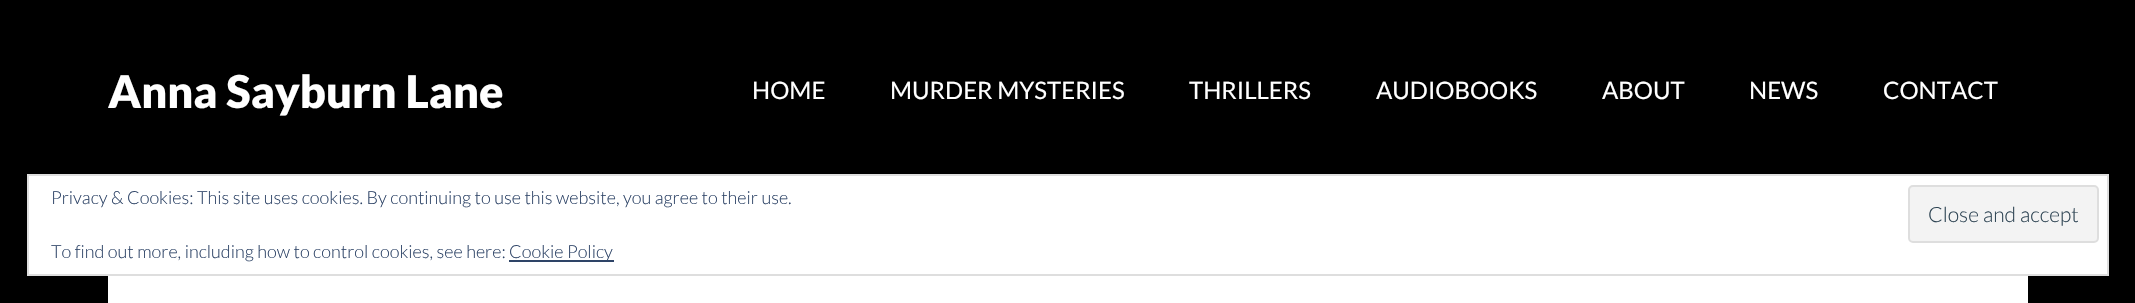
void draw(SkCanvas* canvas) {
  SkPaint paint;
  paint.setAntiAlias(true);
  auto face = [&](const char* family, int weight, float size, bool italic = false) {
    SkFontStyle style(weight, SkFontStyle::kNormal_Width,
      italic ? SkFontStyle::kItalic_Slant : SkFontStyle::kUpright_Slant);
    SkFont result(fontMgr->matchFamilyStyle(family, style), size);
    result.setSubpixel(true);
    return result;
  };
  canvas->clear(0xff000000);
  paint.setColor(0xffffffff);
  canvas->drawRect(SkRect::MakeXYWH(108, 276, 1920, 27), paint);
  canvas->drawRect(SkRect::MakeXYWH(28, 175, 2080, 100), paint);
  paint.setStroke(true);
  paint.setStrokeWidth(2);
  paint.setColor(0xffdedede);
  canvas->drawRect(SkRect::MakeXYWH(28, 175, 2080, 100), paint);
  paint.setStroke(false);
  paint.setColor(0xfff3f3f3);
  canvas->drawRoundRect(SkRect::MakeXYWH(1909, 186, 189, 56), 4, 4, paint);
  paint.setStroke(true);
  paint.setColor(0xffdedede);
  canvas->drawRoundRect(SkRect::MakeXYWH(1909, 186, 189, 56), 4, 4, paint);
  paint.setStroke(false);
  paint.setColor(0xff2e4467);
  canvas->drawRect(SkRect::MakeXYWH(509, 260, 105, 2), paint);
  auto f0 = face("Lato", 900, 45);
  paint.setColor(0xffffffff);
  canvas->drawString("Anna Sayburn Lane", 108, 108, f0, paint);
  auto f1 = face("Lato", 400, 24);
  {
    const struct { const char* s; float x, y; } items[] = {
      {"HOME", 752, 99},
      {"MURDER MYSTERIES", 890, 99},
      {"THRILLERS", 1189, 99},
      {"AUDIOBOOKS", 1376, 99},
      {"ABOUT", 1602, 99},
      {"NEWS", 1749, 99},
      {"CONTACT", 1883, 99},
    };
    for (auto [s, x, y] : items) {
      canvas->drawString(s, x, y, f1, paint);
    }
  }
  auto f2 = face("Lato", 300, 18);
  paint.setColor(0xff2e4467);
  canvas->drawString("Privacy & Cookies: This site uses cookies. By continuing to use this website, you agree to their use.", 51, 204, f2, paint);
  auto f3 = face("Lato", 300, 21);
  paint.setColor(0xff2e4453);
  canvas->drawString("Close and accept", 1928, 222, f3, paint);
  paint.setColor(0xff2e4467);
  canvas->drawString("To find out more, including how to control cookies, see here:", 51, 258, f2, paint);
  canvas->drawString("Cookie Policy", 509, 258, f2, paint);
}
